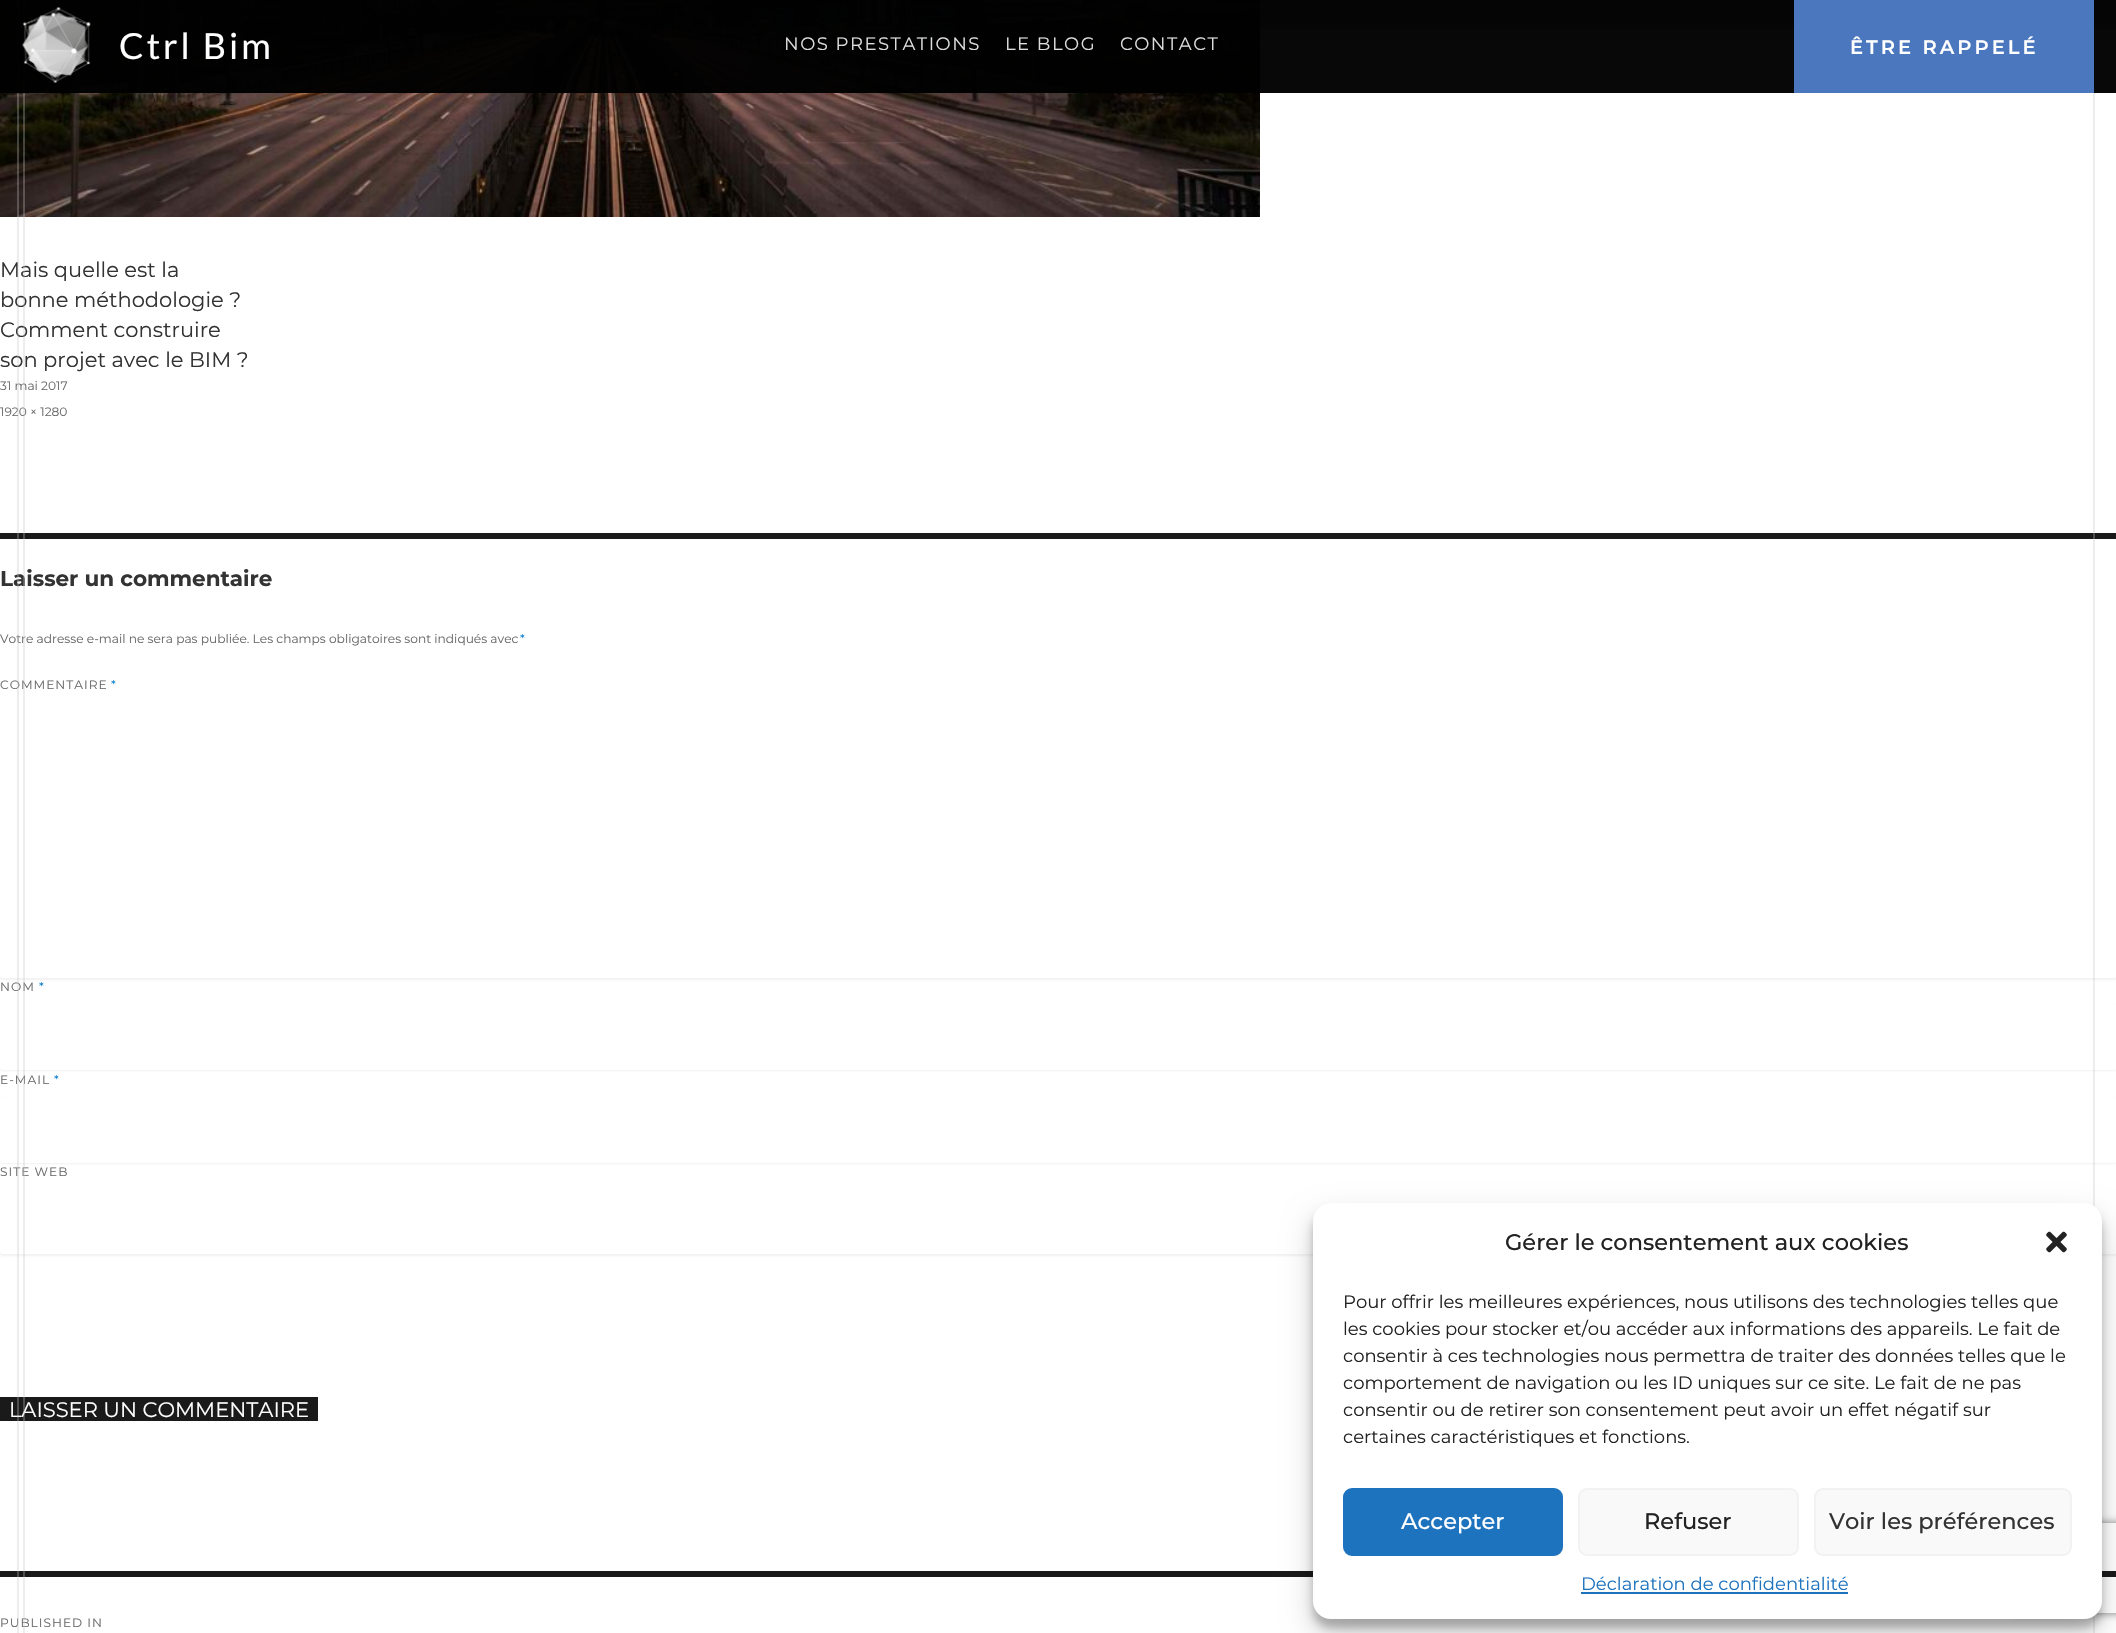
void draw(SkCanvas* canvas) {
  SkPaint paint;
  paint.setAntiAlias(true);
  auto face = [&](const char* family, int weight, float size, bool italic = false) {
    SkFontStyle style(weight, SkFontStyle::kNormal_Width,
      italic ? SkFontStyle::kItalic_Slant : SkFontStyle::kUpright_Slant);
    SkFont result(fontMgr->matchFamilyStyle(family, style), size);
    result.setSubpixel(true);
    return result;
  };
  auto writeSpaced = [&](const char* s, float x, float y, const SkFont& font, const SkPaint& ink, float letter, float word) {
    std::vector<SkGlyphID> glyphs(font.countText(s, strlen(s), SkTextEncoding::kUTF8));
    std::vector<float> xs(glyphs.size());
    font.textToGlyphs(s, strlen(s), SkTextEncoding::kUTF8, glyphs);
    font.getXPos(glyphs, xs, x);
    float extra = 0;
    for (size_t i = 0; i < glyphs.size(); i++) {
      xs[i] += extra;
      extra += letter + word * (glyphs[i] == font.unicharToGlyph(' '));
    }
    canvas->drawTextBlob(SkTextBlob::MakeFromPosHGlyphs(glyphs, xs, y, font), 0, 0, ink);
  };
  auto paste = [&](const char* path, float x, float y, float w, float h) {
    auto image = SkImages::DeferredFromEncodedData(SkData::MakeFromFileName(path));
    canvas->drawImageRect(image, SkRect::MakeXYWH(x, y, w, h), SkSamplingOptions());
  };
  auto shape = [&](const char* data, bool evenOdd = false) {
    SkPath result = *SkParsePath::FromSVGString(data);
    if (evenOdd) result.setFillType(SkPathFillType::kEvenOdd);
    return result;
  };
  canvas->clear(0xffffffff);
  paint.setColor(0xff1a1a1a);
  canvas->drawRect(SkRect::MakeXYWH(0, 533, 2116, 6), paint);
  paint.setColor(0x0d000000);
  paint.setMaskFilter(SkMaskFilter::MakeBlur(kNormal_SkBlurStyle, 1));
  canvas->drawRoundRect(SkRect::MakeXYWH(0, 704, 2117, 276), 3, 3, paint);
  paint.setMaskFilter(nullptr);
  paint.setColor(0xffffffff);
  canvas->drawRoundRect(SkRect::MakeXYWH(0, 702, 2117, 276), 3, 3, paint);
  paint.setColor(0x0d000000);
  paint.setMaskFilter(SkMaskFilter::MakeBlur(kNormal_SkBlurStyle, 1));
  canvas->drawRoundRect(SkRect::MakeXYWH(0, 1005, 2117, 66), 3, 3, paint);
  paint.setMaskFilter(nullptr);
  paint.setColor(0xffffffff);
  canvas->drawRoundRect(SkRect::MakeXYWH(0, 1004, 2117, 66), 3, 3, paint);
  paint.setColor(0x0d000000);
  paint.setMaskFilter(SkMaskFilter::MakeBlur(kNormal_SkBlurStyle, 1));
  canvas->drawRoundRect(SkRect::MakeXYWH(0, 1098, 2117, 66), 3, 3, paint);
  paint.setMaskFilter(nullptr);
  paint.setColor(0xffffffff);
  canvas->drawRoundRect(SkRect::MakeXYWH(0, 1097, 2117, 66), 3, 3, paint);
  paint.setColor(0x0d000000);
  paint.setMaskFilter(SkMaskFilter::MakeBlur(kNormal_SkBlurStyle, 1));
  canvas->drawRoundRect(SkRect::MakeXYWH(0, 1190, 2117, 66), 3, 3, paint);
  paint.setMaskFilter(nullptr);
  paint.setColor(0xffffffff);
  canvas->drawRoundRect(SkRect::MakeXYWH(0, 1188, 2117, 66), 3, 3, paint);
  paint.setColor(0xff1a1a1a);
  canvas->drawRect(SkRect::MakeXYWH(0, 1571, 2116, 6), paint);
  canvas->save();
  canvas->clipPath(shape("M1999 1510H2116V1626H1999ZM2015 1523H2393C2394.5 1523 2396 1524.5 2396 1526V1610C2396 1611.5 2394.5 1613 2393 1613H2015C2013.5 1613 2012 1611.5 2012 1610V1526C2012 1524.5 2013.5 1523 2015 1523Z", true), true);
  paint.setColor(0xff808080);
  paint.setMaskFilter(SkMaskFilter::MakeBlur(kNormal_SkBlurStyle, 4));
  canvas->drawRoundRect(SkRect::MakeXYWH(2012, 1523, 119, 90), 3, 3, paint);
  paint.setMaskFilter(nullptr);
  canvas->restore();
  paint.setColor(0x4dc3c3c3);
  canvas->drawRect(SkRect::MakeXYWH(2093, 0, 2, 1633), paint);
  paste("img/2.png", 0, 0, 1260, 217);
  paint.setColor(0xff1a1a1a);
  canvas->drawRect(SkRect::MakeXYWH(0, 1397, 318, 24), paint);
  paint.setColor(0x3b000000);
  paint.setMaskFilter(SkMaskFilter::MakeBlur(kNormal_SkBlurStyle, 4.5f));
  canvas->drawRoundRect(SkRect::MakeXYWH(1313, 1212, 789, 416), 18, 18, paint);
  paint.setMaskFilter(nullptr);
  paint.setColor(0x30000000);
  paint.setMaskFilter(SkMaskFilter::MakeBlur(kNormal_SkBlurStyle, 15));
  canvas->drawRoundRect(SkRect::MakeXYWH(1313, 1218, 789, 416), 18, 18, paint);
  paint.setMaskFilter(nullptr);
  paint.setColor(0xffffffff);
  canvas->drawRoundRect(SkRect::MakeXYWH(1313, 1203, 789, 416), 18, 18, paint);
  paste("img/3.png", 2046, 1231, 21, 22);
  paint.setColor(0xff1e73be);
  canvas->drawRoundRect(SkRect::MakeXYWH(1344, 1489, 218, 66), 8, 8, paint);
  paint.setStroke(true);
  paint.setStrokeWidth(2);
  canvas->drawRoundRect(SkRect::MakeXYWH(1344, 1489, 218, 66), 8, 8, paint);
  paint.setStroke(false);
  paint.setColor(0xfff9f9f9);
  canvas->drawRoundRect(SkRect::MakeXYWH(1579, 1489, 219, 66), 8, 8, paint);
  paint.setStroke(true);
  paint.setColor(0xfff2f2f2);
  canvas->drawRoundRect(SkRect::MakeXYWH(1579, 1489, 219, 66), 8, 8, paint);
  paint.setStroke(false);
  paint.setColor(0xfff9f9f9);
  canvas->drawRoundRect(SkRect::MakeXYWH(1815, 1489, 256, 66), 8, 8, paint);
  paint.setStroke(true);
  paint.setColor(0xfff2f2f2);
  canvas->drawRoundRect(SkRect::MakeXYWH(1815, 1489, 256, 66), 8, 8, paint);
  paint.setStroke(false);
  paint.setColor(0xff1e73be);
  canvas->drawRect(SkRect::MakeXYWH(1581, 1592, 267, 2), paint);
  auto f0 = face("Montserrat", 400, 21);
  paint.setColor(0xff333333);
  {
    const struct { const char* s; float x, y; } items[] = {
      {"Mais quelle est la", 0, 277},
      {"bonne méthodologie ?", 0, 307},
      {"Comment construire", 0, 337},
      {"son projet avec le BIM ?", 0, 367},
    };
    for (auto [s, x, y] : items) {
      canvas->drawString(s, x, y, f0, paint);
    }
  }
  auto f1 = face("Montserrat", 400, 12.2f);
  paint.setColor(0xff686868);
  canvas->drawString("31 mai 2017", 0, 390, f1, paint);
  canvas->drawString("1920 × 1280", 0, 416, f1, paint);
  auto f2 = face("Montserrat", 700, 21.5f);
  paint.setColor(0xff333333);
  canvas->drawString("Laisser un commentaire", 0, 586, f2, paint);
  paint.setColor(0xff686868);
  canvas->drawString("Votre adresse e-mail ne sera pas publiée. Les champs obligatoires sont indiqués avec", 0, 643, f1, paint);
  paint.setColor(0xff007acc);
  canvas->drawString("*", 520, 643, f1, paint);
  paint.setColor(0xff686868);
  writeSpaced("COMMENTAIRE", 0, 689, f1, paint, 1, 0);
  paint.setColor(0xff007acc);
  writeSpaced("*", 111, 689, f1, paint, 1, 0);
  paint.setColor(0xff686868);
  writeSpaced("NOM", 0, 991, f1, paint, 1, 0);
  paint.setColor(0xff007acc);
  writeSpaced("*", 39, 991, f1, paint, 1, 0);
  paint.setColor(0xff686868);
  writeSpaced("E-MAIL", 0, 1084, f1, paint, 1, 0);
  paint.setColor(0xff007acc);
  writeSpaced("*", 54, 1084, f1, paint, 1, 0);
  paint.setColor(0xff686868);
  writeSpaced("SITE WEB", 0, 1176, f1, paint, 1, 0);
  paint.setColor(0xffffffff);
  canvas->drawString("LAISSER UN COMMENTAIRE", 9, 1417, f0, paint);
  paint.setColor(0xff686868);
  writeSpaced("PUBLISHED IN", 0, 1627, f1, paint, 1, 0);
  {
    const struct { float x, y, w, h; SkColor color; } items[] = {
      {23, 0, 2, 1633, 0x4dc3c3c3},
      {17, 0, 2, 1633, 0x4dc3c3c3},
      {0, 0, 2116, 93, 0xf7000000},
    };
    for (auto [x, y, w, h, color] : items) {
      paint.setColor(color);
      canvas->drawRect(SkRect::MakeXYWH(x, y, w, h), paint);
    }
  }
  {
    const SkColor colors[] = {0x80000000, 0x00000000};
    const float stops[] = {0, 1};
    const SkPoint ends[] = {{1058, 0}, {1058, 93}};
    paint.setShader(SkGradientShader::MakeLinear(ends, colors, stops, 2, SkTileMode::kClamp));
    paint.setAlpha(255);
  }
  canvas->drawRect(SkRect::MakeXYWH(1260, 0, 856, 29), paint);
  paint.setShader(nullptr);
  paint.setColor(0xff4b77be);
  canvas->drawRect(SkRect::MakeXYWH(1794, 0, 300, 93), paint);
  auto f3 = face("Montserrat", 600, 19.5f);
  paint.setColor(0xffffffff);
  writeSpaced("ÊTRE RAPPELÉ", 1850, 54, f3, paint, 3, 0);
  auto f4 = face("Montserrat", 400, 18);
  paint.setColor(0xffdddddd);
  {
    const struct { const char* s; float x, y; } items[] = {
      {"CONTACT", 1120, 50},
      {"LE BLOG", 1005, 50},
      {"NOS PRESTATIONS", 784, 50},
    };
    for (auto [s, x, y] : items) {
      writeSpaced(s, x, y, f4, paint, 1.5f, 0);
    }
  }
  auto f5 = face("Lato", 400, 36);
  paint.setColor(0xffffffff);
  writeSpaced("Ctrl Bim", 119, 59, f5, paint, 3, 0);
  paste("img/1.png", 22, 7, 69, 76);
  auto f6 = face("Montserrat", 500, 22.5f);
  paint.setColor(0xff222222);
  canvas->drawString("Gérer le consentement aux cookies", 1505, 1250, f6, paint);
  {
    const struct { const char* s; float x, y; } items[] = {
      {"Pour offrir les meilleures expériences, nous utilisons des technologies telles que", 1343, 1308},
      {"les cookies pour stocker et/ou accéder aux informations des appareils. Le fait de", 1343, 1335},
      {"consentir à ces technologies nous permettra de traiter des données telles que le", 1343, 1362},
      {"comportement de navigation ou les ID uniques sur ce site. Le fait de ne pas", 1343, 1389},
      {"consentir ou de retirer son consentement peut avoir un effet négatif sur", 1343, 1416},
      {"certaines caractéristiques et fonctions.", 1343, 1443},
    };
    for (auto [s, x, y] : items) {
      canvas->drawString(s, x, y, f4, paint);
    }
  }
  paint.setColor(0xffffffff);
  canvas->drawString("Accepter", 1401, 1529, f6, paint);
  paint.setColor(0xff222222);
  canvas->drawString("Refuser", 1644, 1529, f6, paint);
  paint.setColor(0xff333333);
  canvas->drawString("Voir les préférences", 1829, 1529, f6, paint);
  paint.setColor(0xff1e73be);
  canvas->drawString("Déclaration de confidentialité", 1581, 1590, f4, paint);
}
